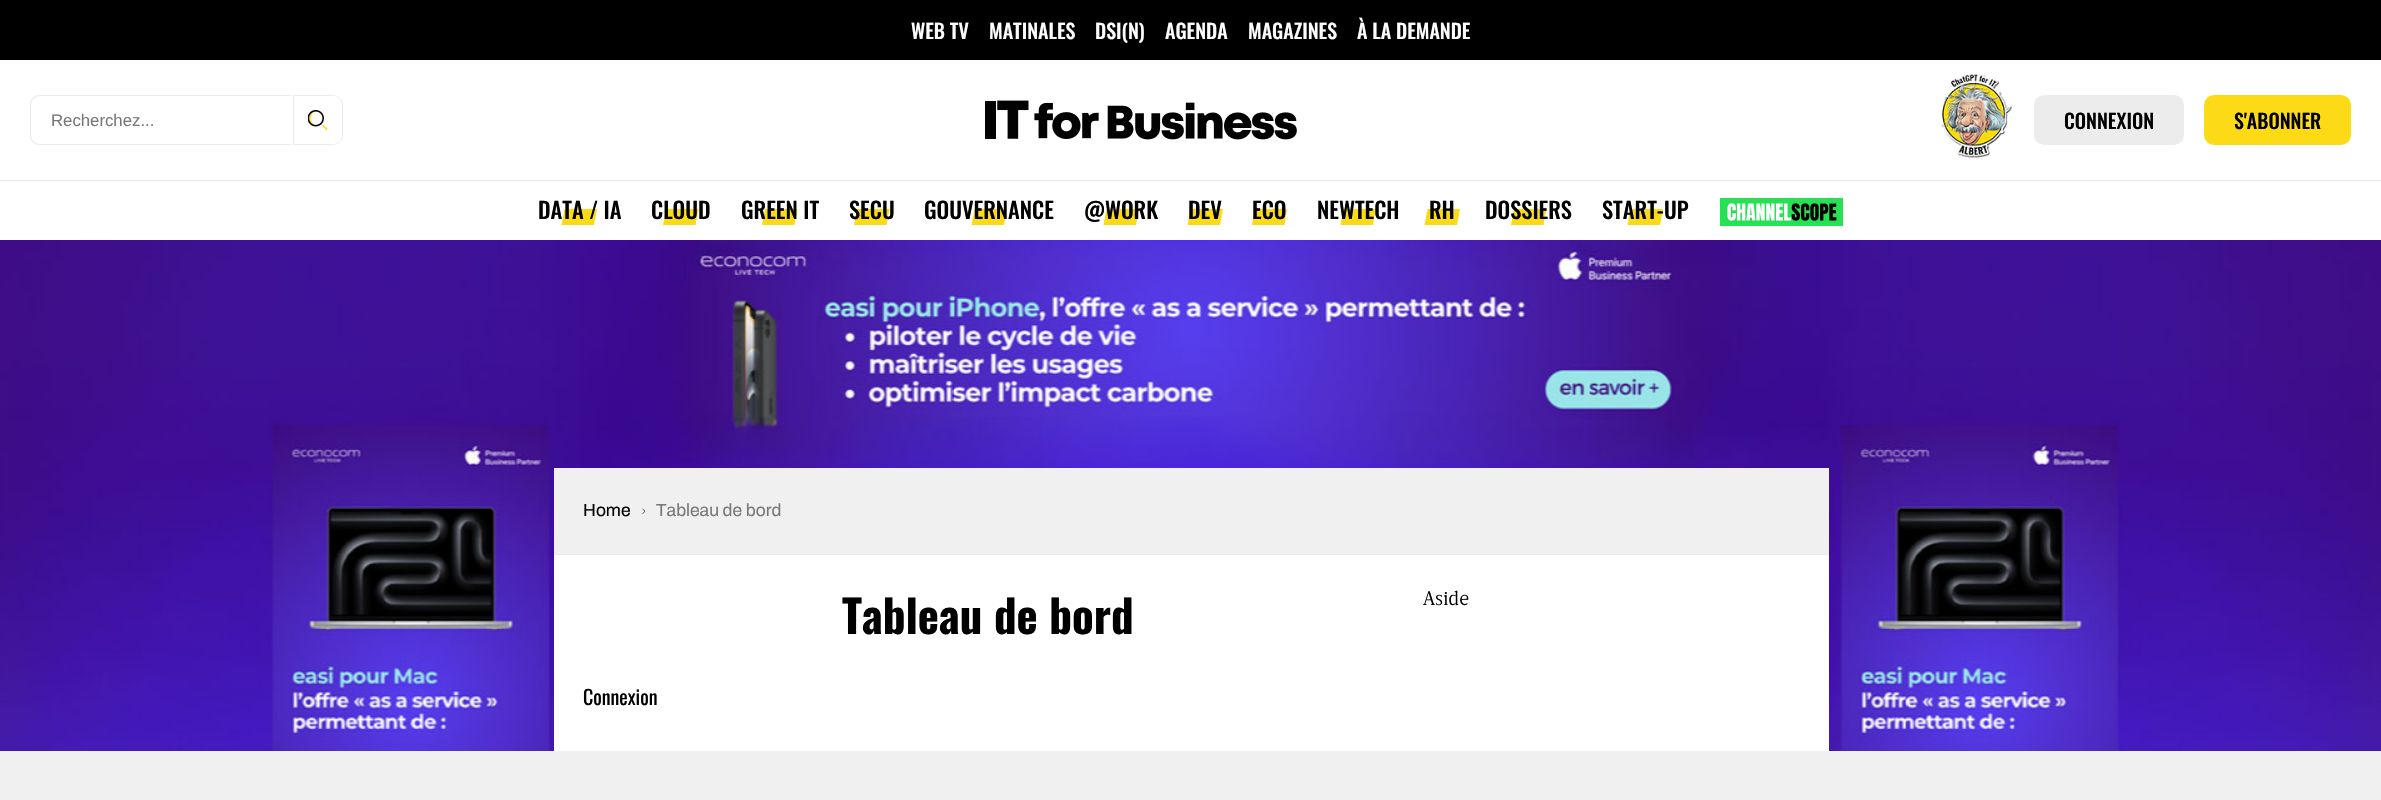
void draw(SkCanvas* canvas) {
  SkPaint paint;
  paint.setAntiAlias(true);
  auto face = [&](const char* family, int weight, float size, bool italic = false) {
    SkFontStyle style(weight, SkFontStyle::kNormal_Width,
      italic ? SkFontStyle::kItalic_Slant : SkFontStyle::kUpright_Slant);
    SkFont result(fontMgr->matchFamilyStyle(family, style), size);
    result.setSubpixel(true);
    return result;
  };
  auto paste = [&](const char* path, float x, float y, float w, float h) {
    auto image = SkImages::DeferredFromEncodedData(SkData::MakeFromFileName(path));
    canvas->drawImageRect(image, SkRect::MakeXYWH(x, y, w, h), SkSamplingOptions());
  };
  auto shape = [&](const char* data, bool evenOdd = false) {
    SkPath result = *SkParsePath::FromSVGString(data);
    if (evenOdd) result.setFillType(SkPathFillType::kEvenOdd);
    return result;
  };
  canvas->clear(0xffffffff);
  paint.setColor(0xff000000);
  canvas->drawRect(SkRect::MakeXYWH(0, 0, 2381, 60), paint);
  paint.setColor(0xffececec);
  canvas->drawPath(shape("M40 95H292V145H40C34 145 30 141 30 135V105C30 99 34 95 40 95ZM40 96H292V144H40C35 144 31 140 31 135V105C31 100 35 96 40 96Z", true), paint);
  paste("img/1.png", 308, 110, 20, 20);
  paint.setStroke(true);
  paint.setStrokeWidth(1);
  canvas->drawPath(shape("M293.5 95.5H333C338 95.5 342.5 100 342.5 105V135C342.5 140 338 144.5 333 144.5H293.5Z"), paint);
  paste("img/2.png", 985, 100, 312, 40);
  paste("img/3.png", 1941, 73, 71, 85);
  paint.setStroke(false);
  canvas->drawRoundRect(SkRect::MakeXYWH(2034, 95, 150, 50), 10, 10, paint);
  paint.setColor(0xfffcdb16);
  canvas->drawRoundRect(SkRect::MakeXYWH(2204, 95, 147, 50), 10, 10, paint);
  paint.setColor(0xffececec);
  canvas->drawRect(SkRect::MakeXYWH(0, 180, 2381, 1), paint);
  paint.setColor(0xfffcdb16);
  canvas->drawPath(shape("M564.5 209H597L594 225H561.5Z"), paint);
  canvas->drawPath(shape("M666 209H698.5L695.5 225H663Z"), paint);
  canvas->drawPath(shape("M765 209H797.5L794.5 225H762Z"), paint);
  canvas->drawPath(shape("M857 209H889.5L886.5 225H854Z"), paint);
  canvas->drawPath(shape("M974.5 209H1007L1004 225H971.5Z"), paint);
  canvas->drawPath(shape("M1106.5 209H1139L1136 225H1103.5Z"), paint);
  canvas->drawPath(shape("M1190.5 209H1223L1220 225H1187.5Z"), paint);
  canvas->drawPath(shape("M1254.5 209H1287L1284.5 225H1252Z"), paint);
  canvas->drawPath(shape("M1343 209H1375.5L1373 225H1340.5Z"), paint);
  canvas->drawPath(shape("M1427.5 209H1460L1457 225H1424.5Z"), paint);
  canvas->drawPath(shape("M1514 209H1546.5L1543.5 225H1511Z"), paint);
  canvas->drawPath(shape("M1630.5 209H1663L1660 225H1627.5Z"), paint);
  paste("img/4.png", 1720, 198, 123, 28);
  paste("img/5.png", 0, 240, 2381, 511);
  {
    const struct { float x, y, w, h; SkColor color; } items[] = {
      {554, 555, 1275, 196, 0xffffffff},
      {554, 468, 1275, 86, 0xfff0f0f0},
      {554, 554, 1275, 1, 0xffececec},
    };
    for (auto [x, y, w, h, color] : items) {
      paint.setColor(color);
      canvas->drawRect(SkRect::MakeXYWH(x, y, w, h), paint);
    }
  }
  paint.setStroke(true);
  paint.setStrokeWidth(0.6f);
  paint.setColor(0xff000000);
  canvas->drawPath(shape("M642.5 509L645 511L642.5 514"), paint);
  paint.setStroke(false);
  paint.setColor(0xfff0f0f0);
  canvas->drawRect(SkRect::MakeXYWH(0, 751, 2381, 49), paint);
  auto f0 = face("Oswald", 500, 20);
  paint.setColor(0xffffffff);
  {
    const struct { const char* s; float x, y; } items[] = {
      {"WEB TV", 911, 39},
      {"MATINALES", 989, 39},
      {"DSI(N)", 1095, 39},
      {"AGENDA", 1165, 39},
      {"MAGAZINES", 1248, 39},
      {"À LA DEMANDE", 1357, 39},
    };
    for (auto [s, x, y] : items) {
      canvas->drawString(s, x, y, f0, paint);
    }
  }
  auto f1 = face("Liberation Sans", 400, 16.75f);
  paint.setColor(0xff787878);
  canvas->drawString("Recherchez...", 51, 126, f1, paint);
  paint.setColor(0xff000000);
  canvas->drawString("CONNEXION", 2064, 129, f0, paint);
  canvas->drawString("S'ABONNER", 2234, 129, f0, paint);
  auto f2 = face("Oswald", 500, 22.5f);
  {
    const struct { const char* s; float x, y; } items[] = {
      {"DATA / IA", 538, 219},
      {"CLOUD", 651, 219},
      {"GREEN IT", 741, 219},
      {"SECU", 849, 219},
      {"GOUVERNANCE", 924, 219},
      {"@WORK", 1084, 219},
      {"DEV", 1188, 219},
      {"ECO", 1252, 219},
      {"NEWTECH", 1317, 219},
      {"RH", 1429, 219},
      {"DOSSIERS", 1485, 219},
      {"START-UP", 1602, 219},
    };
    for (auto [s, x, y] : items) {
      canvas->drawString(s, x, y, f2, paint);
    }
  }
  auto f3 = face("Archivo", 400, 17.5f);
  canvas->drawString("Home", 583, 516, f3, paint);
  paint.setColor(0xff787878);
  canvas->drawString("Tableau de bord", 656, 516, f3, paint);
  auto f4 = face("Oswald", 700, 45);
  paint.setColor(0xff000000);
  canvas->drawString("Tableau de bord", 842, 634, f4, paint);
  auto f5 = face("Oswald", 400, 20);
  canvas->drawString("Connexion", 583, 705, f5, paint);
  auto f6 = face("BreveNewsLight", 300, 20);
  canvas->drawString("Aside", 1423, 605, f6, paint);
}
